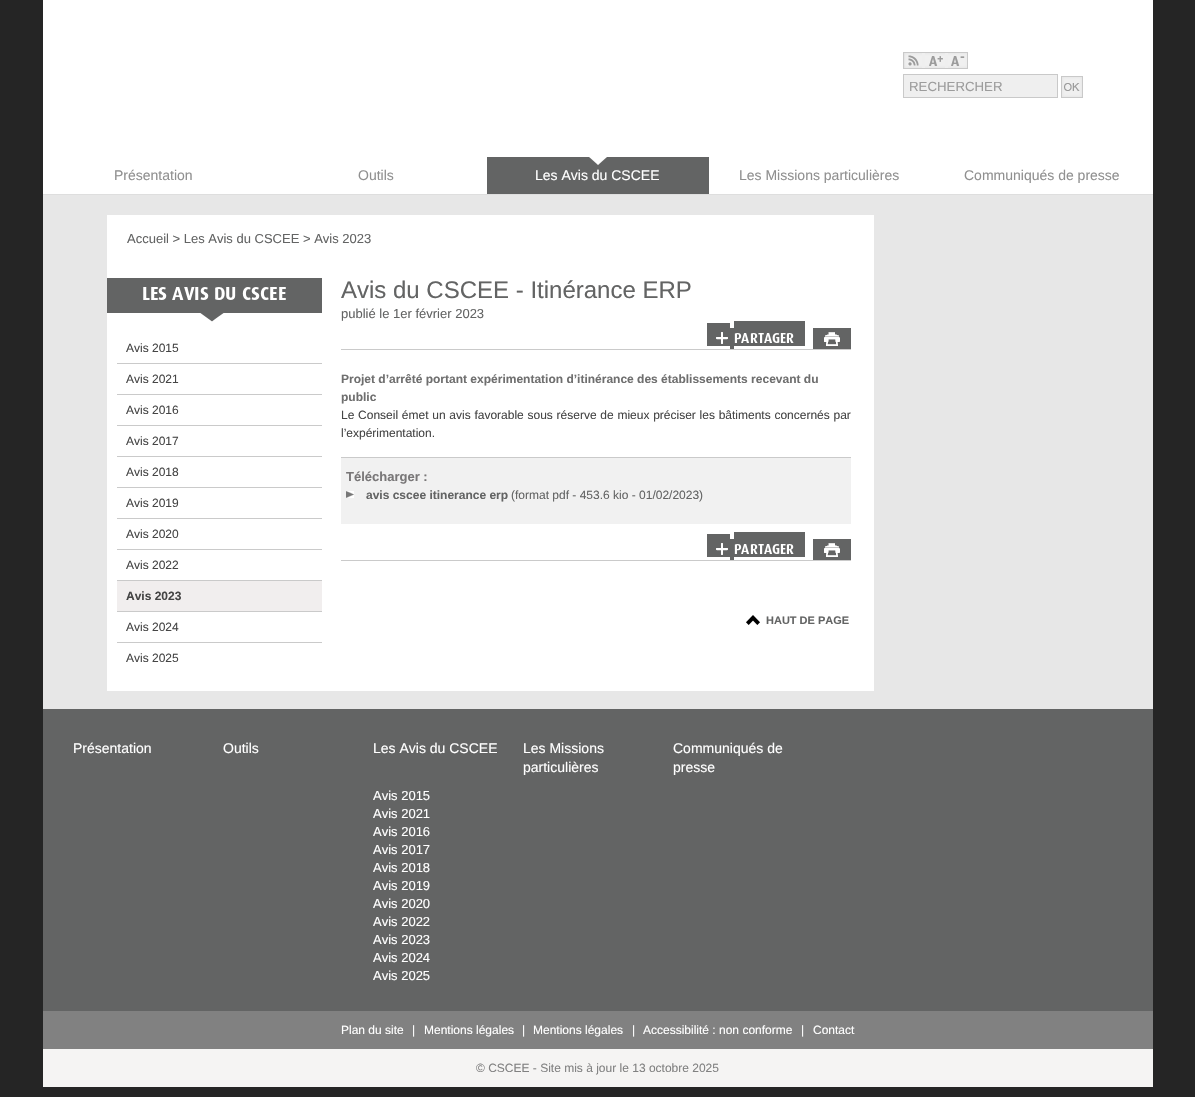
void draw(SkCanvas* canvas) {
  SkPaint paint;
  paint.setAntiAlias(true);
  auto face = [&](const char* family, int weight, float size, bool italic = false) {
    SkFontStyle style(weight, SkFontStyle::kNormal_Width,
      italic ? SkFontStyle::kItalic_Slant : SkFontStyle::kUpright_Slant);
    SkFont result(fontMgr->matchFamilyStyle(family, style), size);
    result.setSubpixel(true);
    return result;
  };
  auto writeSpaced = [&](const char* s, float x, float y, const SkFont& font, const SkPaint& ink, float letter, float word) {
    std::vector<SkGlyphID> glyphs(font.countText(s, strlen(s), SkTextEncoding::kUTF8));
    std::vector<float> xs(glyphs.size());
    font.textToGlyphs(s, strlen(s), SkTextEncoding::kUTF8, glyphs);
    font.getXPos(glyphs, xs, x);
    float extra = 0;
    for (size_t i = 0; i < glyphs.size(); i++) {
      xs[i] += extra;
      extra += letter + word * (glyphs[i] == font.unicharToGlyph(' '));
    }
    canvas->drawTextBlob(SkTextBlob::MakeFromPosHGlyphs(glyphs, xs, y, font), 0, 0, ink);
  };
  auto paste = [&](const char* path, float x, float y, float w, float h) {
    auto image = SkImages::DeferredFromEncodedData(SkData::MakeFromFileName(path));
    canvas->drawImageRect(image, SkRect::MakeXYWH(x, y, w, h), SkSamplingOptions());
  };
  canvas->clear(0xff252525);
  {
    const struct { float x, y, w, h; SkColor color; } items[] = {
      {43, 195, 1110, 514, 0xffe7e7e7},
      {43, 0, 1110, 165, 0xffffffff},
      {922, 53, 26, 15, 0xffefefef},
    };
    for (auto [x, y, w, h, color] : items) {
      paint.setColor(color);
      canvas->drawRect(SkRect::MakeXYWH(x, y, w, h), paint);
    }
  }
  paint.setStroke(true);
  paint.setStrokeWidth(1);
  paint.setColor(0xffc9c9c9);
  canvas->drawRect(SkRect::MakeXYWH(903.5f, 52.5f, 64, 16), paint);
  paste("img/1.png", 904, 53, 18, 15);
  paste("img/2.png", 925, 53, 20, 15);
  paste("img/3.png", 948, 53, 19, 15);
  paint.setStroke(false);
  paint.setColor(0xffefefef);
  canvas->drawRect(SkRect::MakeXYWH(903.5f, 74.5f, 154, 23), paint);
  paint.setStroke(true);
  paint.setColor(0xffc9c9c9);
  canvas->drawRect(SkRect::MakeXYWH(903.5f, 74.5f, 154, 23), paint);
  paste("img/4.png", 1061, 76, 22, 22);
  paint.setStroke(false);
  {
    const struct { float x, y, w, h; SkColor color; } items[] = {
      {43, 179, 1110, 15, 0xffffffff},
      {43, 194, 1110, 1, 0xffdedede},
      {43, 165, 444, 14, 0xffffffff},
    };
    for (auto [x, y, w, h, color] : items) {
      paint.setColor(color);
      canvas->drawRect(SkRect::MakeXYWH(x, y, w, h), paint);
    }
  }
  paste("img/5.png", 487, 157, 222, 37);
  {
    const struct { float x, y, w, h; SkColor color; } items[] = {
      {709, 165, 444, 14, 0xffffffff},
      {107, 215, 767, 476, 0xffffffff},
      {107, 278, 215, 35, 0xff636464},
    };
    for (auto [x, y, w, h, color] : items) {
      paint.setColor(color);
      canvas->drawRect(SkRect::MakeXYWH(x, y, w, h), paint);
    }
  }
  paste("img/6.png", 107, 313, 215, 10);
  paste("img/7.png", 143, 287, 143, 13);
  {
    const struct { float x, y, w, h; SkColor color; } items[] = {
      {117, 363, 205, 1, 0xffcacaca},
      {117, 394, 205, 1, 0xffcacaca},
      {117, 425, 205, 1, 0xffcacaca},
      {117, 456, 205, 1, 0xffcacaca},
      {117, 487, 205, 1, 0xffcacaca},
      {117, 518, 205, 1, 0xffcacaca},
      {117, 549, 205, 1, 0xffcacaca},
      {117, 580, 205, 1, 0xffcacaca},
      {117, 581, 205, 30, 0xfff1eeee},
      {117, 611, 205, 1, 0xffcacaca},
      {117, 642, 205, 1, 0xffcacaca},
      {341, 349, 510, 1, 0xffcacaca},
      {707, 323, 23, 23, 0xff636464},
      {730, 328, 4, 21, 0xff636464},
      {734, 321, 71, 25, 0xff636464},
    };
    for (auto [x, y, w, h, color] : items) {
      paint.setColor(color);
      canvas->drawRect(SkRect::MakeXYWH(x, y, w, h), paint);
    }
  }
  paste("img/8.png", 716, 332, 12, 12);
  paste("img/9.png", 734, 333, 60, 10);
  paste("img/10.png", 813, 328, 38, 21);
  paint.setColor(0xffcacaca);
  canvas->drawRect(SkRect::MakeXYWH(341, 457, 510, 1), paint);
  paint.setColor(0xfff1f1f1);
  canvas->drawRect(SkRect::MakeXYWH(341, 458, 510, 66), paint);
  paste("img/11.png", 346, 491, 8, 7);
  {
    const struct { float x, y, w, h; SkColor color; } items[] = {
      {341, 560, 510, 1, 0xffcacaca},
      {707, 534, 23, 23, 0xff636464},
      {730, 539, 4, 21, 0xff636464},
      {734, 532, 71, 25, 0xff636464},
    };
    for (auto [x, y, w, h, color] : items) {
      paint.setColor(color);
      canvas->drawRect(SkRect::MakeXYWH(x, y, w, h), paint);
    }
  }
  paste("img/8.png", 716, 543, 12, 12);
  paste("img/9.png", 734, 544, 60, 10);
  paste("img/10.png", 813, 539, 38, 21);
  paste("img/12.png", 746, 615, 14, 10);
  {
    const struct { float x, y, w, h; SkColor color; } items[] = {
      {43, 709, 1110, 302, 0xff636464},
      {43, 1011, 1110, 38, 0xff818181},
      {43, 1049, 1110, 38, 0xfff5f4f3},
    };
    for (auto [x, y, w, h, color] : items) {
      paint.setColor(color);
      canvas->drawRect(SkRect::MakeXYWH(x, y, w, h), paint);
    }
  }
  auto f0 = face("Liberation Sans", 400, 13.25f);
  paint.setColor(0xff9c9c9c);
  canvas->drawString("RECHERCHER", 909, 91, f0, paint);
  auto f1 = face("Liberation Sans", 400, 14);
  paint.setColor(0xff909090);
  canvas->drawString("Présentation", 114, 180, f1, paint);
  canvas->drawString("Outils", 358, 180, f1, paint);
  paint.setColor(0xffffffff);
  canvas->drawString("Les Avis du CSCEE", 535, 180, f1, paint);
  paint.setColor(0xff909090);
  canvas->drawString("Les Missions particulières", 739, 180, f1, paint);
  canvas->drawString("Communiqués de presse", 964, 180, f1, paint);
  auto f2 = face("Liberation Sans", 400, 13);
  paint.setColor(0xff636464);
  canvas->drawString("Accueil > Les Avis du CSCEE > Avis 2023", 127, 243, f2, paint);
  auto f3 = face("Liberation Sans", 400, 12);
  paint.setColor(0xff454545);
  {
    const struct { const char* s; float x, y; } items[] = {
      {"Avis 2015", 126, 352},
      {"Avis 2021", 126, 383},
      {"Avis 2016", 126, 414},
      {"Avis 2017", 126, 445},
      {"Avis 2018", 126, 476},
      {"Avis 2019", 126, 507},
      {"Avis 2020", 126, 538},
      {"Avis 2022", 126, 569},
    };
    for (auto [s, x, y] : items) {
      canvas->drawString(s, x, y, f3, paint);
    }
  }
  auto f4 = face("Liberation Sans", 700, 12);
  canvas->drawString("Avis 2023", 126, 600, f4, paint);
  canvas->drawString("Avis 2024", 126, 631, f3, paint);
  canvas->drawString("Avis 2025", 126, 662, f3, paint);
  auto f5 = face("Liberation Sans", 400, 24);
  paint.setColor(0xff636464);
  canvas->drawString("Avis du CSCEE - Itinérance ERP", 341, 298, f5, paint);
  canvas->drawString("publié le 1er février 2023", 341, 318, f2, paint);
  paint.setColor(0xff6f6f6f);
  canvas->drawString("Projet d’arrêté portant expérimentation d’itinérance des établissements recevant du", 341, 383, f4, paint);
  canvas->drawString("public", 341, 401, f4, paint);
  paint.setColor(0xff454545);
  writeSpaced("Le Conseil émet un avis favorable sous réserve de mieux préciser les bâtiments concernés par", 341, 419, f3, paint, 0, 0.4f);
  canvas->drawString("l’expérimentation.", 341, 437, f3, paint);
  auto f6 = face("Liberation Sans", 700, 13);
  paint.setColor(0xff797778);
  canvas->drawString("Télécharger :", 346, 481, f6, paint);
  paint.setColor(0xff636464);
  canvas->drawString("avis cscee itinerance erp", 366, 499, f4, paint);
  canvas->drawString("(format pdf - 453.6 kio - 01/02/2023)", 511, 499, f3, paint);
  auto f7 = face("Liberation Sans", 700, 11);
  canvas->drawString("HAUT DE PAGE", 766, 624, f7, paint);
  paint.setColor(0xffffffff);
  {
    const struct { const char* s; float x, y; } items[] = {
      {"Présentation", 73, 753},
      {"Outils", 223, 753},
      {"Les Avis du CSCEE", 373, 753},
    };
    for (auto [s, x, y] : items) {
      canvas->drawString(s, x, y, f1, paint);
    }
  }
  {
    const struct { const char* s; float x, y; } items[] = {
      {"Avis 2015", 373, 800},
      {"Avis 2021", 373, 818},
      {"Avis 2016", 373, 836},
      {"Avis 2017", 373, 854},
      {"Avis 2018", 373, 872},
      {"Avis 2019", 373, 890},
      {"Avis 2020", 373, 908},
      {"Avis 2022", 373, 926},
      {"Avis 2023", 373, 944},
      {"Avis 2024", 373, 962},
      {"Avis 2025", 373, 980},
    };
    for (auto [s, x, y] : items) {
      canvas->drawString(s, x, y, f2, paint);
    }
  }
  {
    const struct { const char* s; float x, y; } items[] = {
      {"Les Missions", 523, 753},
      {"particulières", 523, 772},
      {"Communiqués de", 673, 753},
      {"presse", 673, 772},
    };
    for (auto [s, x, y] : items) {
      canvas->drawString(s, x, y, f1, paint);
    }
  }
  {
    const struct { const char* s; float x, y; } items[] = {
      {"Plan du site", 341, 1034},
      {"|", 412, 1034},
      {"Mentions légales", 424, 1034},
      {"|", 522, 1034},
      {"Mentions légales", 533, 1034},
      {"|", 632, 1034},
      {"Accessibilité : non conforme", 643, 1034},
      {"|", 801, 1034},
      {"Contact", 813, 1034},
    };
    for (auto [s, x, y] : items) {
      canvas->drawString(s, x, y, f3, paint);
    }
  }
  paint.setColor(0xff818181);
  canvas->drawString("© CSCEE - Site mis à jour le 13 octobre 2025", 476, 1072, f3, paint);
}
